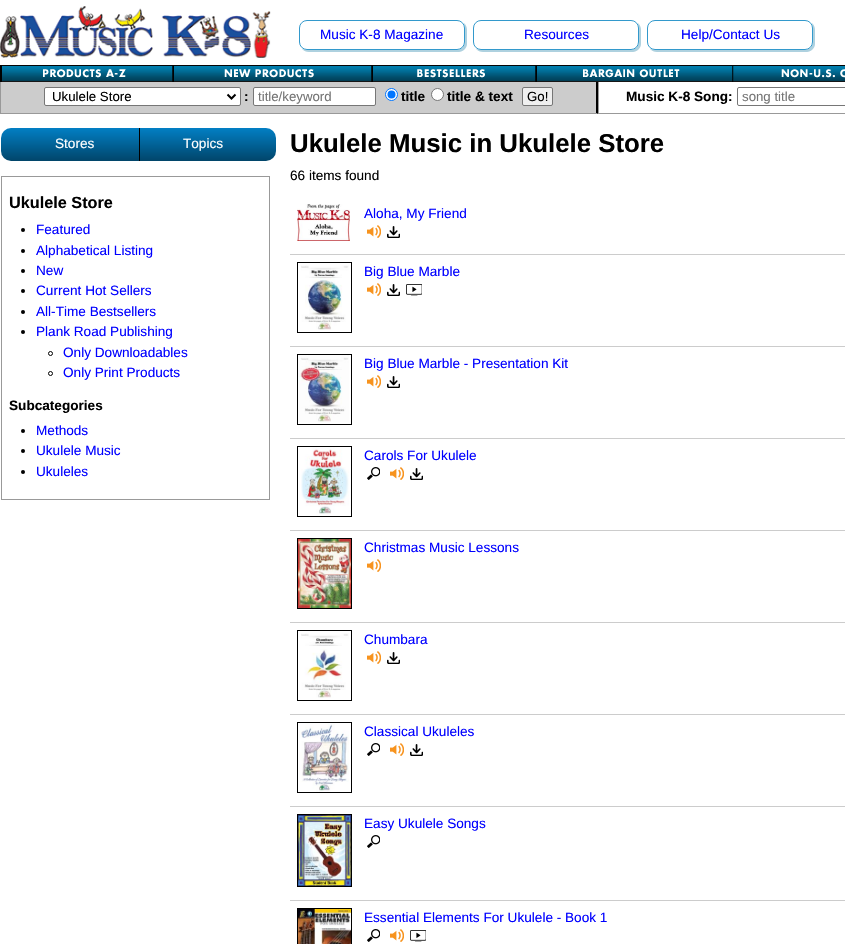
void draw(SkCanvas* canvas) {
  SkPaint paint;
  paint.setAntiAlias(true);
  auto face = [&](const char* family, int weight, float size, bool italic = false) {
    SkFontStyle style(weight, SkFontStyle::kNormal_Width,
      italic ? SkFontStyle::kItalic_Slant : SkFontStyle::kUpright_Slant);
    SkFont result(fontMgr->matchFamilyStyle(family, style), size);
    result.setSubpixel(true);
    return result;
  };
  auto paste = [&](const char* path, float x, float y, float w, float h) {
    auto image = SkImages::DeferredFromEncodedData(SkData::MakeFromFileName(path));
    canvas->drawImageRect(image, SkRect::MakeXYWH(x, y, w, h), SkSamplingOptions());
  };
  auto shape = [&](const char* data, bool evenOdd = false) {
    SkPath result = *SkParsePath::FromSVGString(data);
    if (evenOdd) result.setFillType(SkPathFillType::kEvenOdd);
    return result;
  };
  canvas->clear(0xffffffff);
  paste("img/1.png", 0, 6, 271, 52);
  paint.setColor(0xffaed1df);
  canvas->drawPath(shape("M302 49C304 51 306 52 309 52H459C463 52 467 48 467 44V30C467 27 466 25 464 23C464 25 465 26 465 28V42C465 46 461 50 457 50H307C305 50 304 49 302 49Z"), paint);
  paint.setColor(0xffffffff);
  canvas->drawRoundRect(SkRect::MakeXYWH(299.5f, 20.5f, 165, 29), 7.5f, 7.5f, paint);
  paint.setStroke(true);
  paint.setStrokeWidth(1);
  paint.setColor(0xff3399cc);
  canvas->drawRoundRect(SkRect::MakeXYWH(299.5f, 20.5f, 165, 29), 7.5f, 7.5f, paint);
  paint.setStroke(false);
  paint.setColor(0xffaed1df);
  canvas->drawPath(shape("M476 49C478 51 480 52 483 52H633C637 52 641 48 641 44V30C641 27 640 25 638 23C638 25 639 26 639 28V42C639 46 635 50 631 50H481C479 50 478 49 476 49Z"), paint);
  paint.setColor(0xffffffff);
  canvas->drawRoundRect(SkRect::MakeXYWH(473.5f, 20.5f, 165, 29), 7.5f, 7.5f, paint);
  paint.setStroke(true);
  paint.setColor(0xff3399cc);
  canvas->drawRoundRect(SkRect::MakeXYWH(473.5f, 20.5f, 165, 29), 7.5f, 7.5f, paint);
  paint.setStroke(false);
  paint.setColor(0xffaed1df);
  canvas->drawPath(shape("M650 49C652 51 654 52 657 52H807C811 52 815 48 815 44V30C815 27 814 25 812 23C812 25 813 26 813 28V42C813 46 809 50 805 50H655C653 50 652 49 650 49Z"), paint);
  paint.setColor(0xffffffff);
  canvas->drawRoundRect(SkRect::MakeXYWH(647.5f, 20.5f, 165, 29), 7.5f, 7.5f, paint);
  paint.setStroke(true);
  paint.setColor(0xff3399cc);
  canvas->drawRoundRect(SkRect::MakeXYWH(647.5f, 20.5f, 165, 29), 7.5f, 7.5f, paint);
  paste("img/2.png", 2, 65, 843, 17);
  paint.setStroke(false);
  paint.setColor(0xff000000);
  canvas->drawRect(SkRect::MakeXYWH(0, 65, 2, 17), paint);
  paste("img/3.png", 43, 65, 131, 17);
  paste("img/4.png", 224, 65, 149, 17);
  paste("img/5.png", 417, 65, 120, 17);
  paste("img/6.png", 583, 66, 150, 16);
  paste("img/7.png", 733, 66, 112, 16);
  paint.setColor(0xffcccccc);
  canvas->drawRect(SkRect::MakeXYWH(1, 82, 597, 32), paint);
  paint.setColor(0xff000000);
  canvas->drawPath(shape("M598 82V114L596 113V82Z"), paint);
  paint.setColor(0xff999999);
  canvas->drawPath(shape("M598 114H0L1 113H596Z"), paint);
  canvas->drawRect(SkRect::MakeXYWH(0, 82, 1, 32), paint);
  paint.setColor(0xffffffff);
  canvas->drawRoundRect(SkRect::MakeXYWH(44.5f, 87.5f, 196, 18), 1.5f, 1.5f, paint);
  paint.setStroke(true);
  paint.setColor(0xff767676);
  canvas->drawRoundRect(SkRect::MakeXYWH(44.5f, 87.5f, 196, 18), 1.5f, 1.5f, paint);
  paint.setStrokeWidth(2);
  paint.setColor(0xff000000);
  canvas->drawPath(shape("M227.5 94.5L231.5 98.5L235.5 94.5"), paint);
  paint.setStroke(false);
  paint.setColor(0xffffffff);
  canvas->drawRoundRect(SkRect::MakeXYWH(253.5f, 87.5f, 122, 18), 1.5f, 1.5f, paint);
  paint.setStroke(true);
  paint.setStrokeWidth(1);
  paint.setColor(0xff767676);
  canvas->drawRoundRect(SkRect::MakeXYWH(253.5f, 87.5f, 122, 18), 1.5f, 1.5f, paint);
  paint.setStroke(false);
  paint.setColor(0xffffffff);
  canvas->drawCircle(391.5f, 94.5f, 6, paint);
  paint.setStroke(true);
  paint.setColor(0xff0075ff);
  canvas->drawCircle(391.5f, 94.5f, 6, paint);
  paint.setStroke(false);
  canvas->drawCircle(391.5f, 94.5f, 4, paint);
  paint.setColor(0xffffffff);
  canvas->drawCircle(437.5f, 94.5f, 6, paint);
  paint.setStroke(true);
  paint.setColor(0xff767676);
  canvas->drawCircle(437.5f, 94.5f, 6, paint);
  paint.setStroke(false);
  paint.setColor(0xffefefef);
  canvas->drawRoundRect(SkRect::MakeXYWH(522.5f, 87.5f, 30, 18), 1.5f, 1.5f, paint);
  paint.setStroke(true);
  paint.setColor(0xff767676);
  canvas->drawRoundRect(SkRect::MakeXYWH(522.5f, 87.5f, 30, 18), 1.5f, 1.5f, paint);
  paint.setStroke(false);
  paint.setColor(0xff999999);
  canvas->drawRect(SkRect::MakeXYWH(598, 113, 247, 1), paint);
  canvas->drawRect(SkRect::MakeXYWH(598, 82, 1, 32), paint);
  paint.setStroke(true);
  paint.setColor(0xff767676);
  canvas->drawRoundRect(SkRect::MakeXYWH(737.5f, 87.5f, 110, 18), 1.5f, 1.5f, paint);
  paint.setStroke(false);
  {
    const SkColor colors[] = {0xff027fc4, 0xff01456a};
    const float stops[] = {0, 1};
    const SkPoint ends[] = {{139, 128}, {139, 161}};
    paint.setShader(SkGradientShader::MakeLinear(ends, colors, stops, 2, SkTileMode::kClamp));
    paint.setAlpha(255);
  }
  canvas->drawRoundRect(SkRect::MakeXYWH(1, 128, 275, 33), 10, 10, paint);
  paint.setShader(nullptr);
  paint.setColor(0xff000000);
  canvas->drawRect(SkRect::MakeXYWH(139, 128, 1, 33), paint);
  paint.setStroke(true);
  paint.setColor(0xff999999);
  canvas->drawRect(SkRect::MakeXYWH(1.5f, 176.5f, 268, 323), paint);
  paint.setStroke(false);
  paint.setColor(0xff000000);
  canvas->drawCircle(23, 230, 2, paint);
  canvas->drawCircle(23, 251, 2, paint);
  canvas->drawCircle(23, 271, 2, paint);
  canvas->drawCircle(23, 291, 2, paint);
  canvas->drawCircle(23, 312, 2, paint);
  canvas->drawCircle(23, 332, 2, paint);
  paint.setStroke(true);
  canvas->drawCircle(50.5f, 353.5f, 2, paint);
  canvas->drawCircle(50.5f, 373.5f, 2, paint);
  paint.setStroke(false);
  canvas->drawCircle(23, 431, 2, paint);
  canvas->drawCircle(23, 451, 2, paint);
  canvas->drawCircle(23, 472, 2, paint);
  paint.setColor(0xffcccccc);
  canvas->drawRect(SkRect::MakeXYWH(290, 254, 555, 1), paint);
  paste("img/8.png", 297, 204, 53, 37);
  paste("img/9.png", 367, 225, 14, 13);
  paste("img/10.png", 387, 226, 13, 12);
  canvas->drawRect(SkRect::MakeXYWH(290, 346, 555, 1), paint);
  paint.setStroke(true);
  paint.setColor(0xff000000);
  canvas->drawRect(SkRect::MakeXYWH(297.5f, 262.5f, 54, 70), paint);
  paste("img/11.png", 301, 265, 48, 65);
  paste("img/9.png", 367, 283, 14, 13);
  paste("img/10.png", 387, 284, 13, 12);
  paste("img/12.png", 406, 284, 16, 12);
  paint.setStroke(false);
  paint.setColor(0xffcccccc);
  canvas->drawRect(SkRect::MakeXYWH(290, 438, 555, 1), paint);
  paint.setStroke(true);
  paint.setColor(0xff000000);
  canvas->drawRect(SkRect::MakeXYWH(297.5f, 354.5f, 54, 70), paint);
  paste("img/13.png", 298, 355, 51, 67);
  paste("img/9.png", 367, 375, 14, 13);
  paste("img/10.png", 387, 376, 13, 12);
  paint.setStroke(false);
  paint.setColor(0xffcccccc);
  canvas->drawRect(SkRect::MakeXYWH(290, 530, 555, 1), paint);
  paint.setStroke(true);
  paint.setColor(0xff000000);
  canvas->drawRect(SkRect::MakeXYWH(297.5f, 446.5f, 54, 70), paint);
  paste("img/14.png", 301, 447, 48, 67);
  paste("img/15.png", 367, 467, 13, 13);
  paste("img/9.png", 390, 467, 14, 13);
  paste("img/10.png", 410, 468, 13, 12);
  paint.setStroke(false);
  paint.setColor(0xffcccccc);
  canvas->drawRect(SkRect::MakeXYWH(290, 622, 555, 1), paint);
  paint.setStroke(true);
  paint.setColor(0xff000000);
  canvas->drawRect(SkRect::MakeXYWH(297.5f, 538.5f, 54, 70), paint);
  paste("img/16.png", 298, 539, 53, 69);
  paste("img/9.png", 367, 559, 14, 13);
  paint.setStroke(false);
  paint.setColor(0xffcccccc);
  canvas->drawRect(SkRect::MakeXYWH(290, 714, 555, 1), paint);
  paint.setStroke(true);
  paint.setColor(0xff000000);
  canvas->drawRect(SkRect::MakeXYWH(297.5f, 630.5f, 54, 70), paint);
  paste("img/17.png", 301, 633, 48, 65);
  paste("img/9.png", 367, 651, 14, 13);
  paste("img/10.png", 387, 652, 13, 12);
  paint.setStroke(false);
  paint.setColor(0xffcccccc);
  canvas->drawRect(SkRect::MakeXYWH(290, 806, 555, 1), paint);
  paint.setStroke(true);
  paint.setColor(0xff000000);
  canvas->drawRect(SkRect::MakeXYWH(297.5f, 722.5f, 54, 70), paint);
  paste("img/18.png", 299, 723, 50, 69);
  paste("img/15.png", 367, 743, 13, 13);
  paste("img/9.png", 390, 743, 14, 13);
  paste("img/10.png", 410, 744, 13, 12);
  paint.setStroke(false);
  paint.setColor(0xffcccccc);
  canvas->drawRect(SkRect::MakeXYWH(290, 900, 555, 1), paint);
  paint.setStroke(true);
  paint.setColor(0xff000000);
  canvas->drawRect(SkRect::MakeXYWH(297.5f, 814.5f, 54, 72), paint);
  paste("img/19.png", 298, 815, 53, 71);
  paste("img/15.png", 367, 835, 13, 13);
  canvas->drawRect(SkRect::MakeXYWH(297.5f, 908.5f, 54, 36), paint);
  paste("img/20.png", 298, 909, 53, 35);
  paste("img/15.png", 367, 929, 13, 13);
  paste("img/9.png", 390, 929, 14, 13);
  paste("img/12.png", 410, 930, 16, 12);
  auto f0 = face("Liberation Sans", 400, 13.6f);
  paint.setStroke(false);
  paint.setColor(0xff0000ff);
  {
    const struct { const char* s; float x, y; } items[] = {
      {"Music K-8 Magazine", 320, 39},
      {"Resources", 524, 39},
      {"Help/Contact Us", 681, 39},
    };
    for (auto [s, x, y] : items) {
      canvas->drawString(s, x, y, f0, paint);
    }
  }
  auto f1 = face("Liberation Sans", 400, 13.25f);
  paint.setColor(0xff000000);
  canvas->drawString("Ukulele Store", 52, 101, f1, paint);
  auto f2 = face("Liberation Sans", 700, 13.6f);
  canvas->drawString(":", 244, 101, f2, paint);
  paint.setColor(0xff757575);
  canvas->drawString("title/keyword", 258, 101, f1, paint);
  paint.setColor(0xff000000);
  canvas->drawString("title", 401, 101, f2, paint);
  canvas->drawString("title & text", 447, 101, f2, paint);
  canvas->drawString("Go!", 527, 101, f1, paint);
  canvas->drawString("Music K-8 Song:", 626, 101, f2, paint);
  paint.setColor(0xff757575);
  canvas->drawString("song title", 742, 101, f1, paint);
  paint.setColor(0xffffffff);
  canvas->drawString("Stores", 55, 148, f0, paint);
  canvas->drawString("Topics", 183, 148, f0, paint);
  auto f3 = face("Liberation Sans", 700, 16.25f);
  paint.setColor(0xff000000);
  canvas->drawString("Ukulele Store", 9, 208, f3, paint);
  paint.setColor(0xff0000ff);
  {
    const struct { const char* s; float x, y; } items[] = {
      {"Featured", 36, 234},
      {"Alphabetical Listing", 36, 255},
      {"New", 36, 275},
      {"Current Hot Sellers", 36, 295},
      {"All-Time Bestsellers", 36, 316},
      {"Plank Road Publishing", 36, 336},
      {"Only Downloadables", 63, 357},
      {"Only Print Products", 63, 377},
    };
    for (auto [s, x, y] : items) {
      canvas->drawString(s, x, y, f0, paint);
    }
  }
  paint.setColor(0xff000000);
  canvas->drawString("Subcategories", 9, 410, f2, paint);
  paint.setColor(0xff0000ff);
  {
    const struct { const char* s; float x, y; } items[] = {
      {"Methods", 36, 435},
      {"Ukulele Music", 36, 455},
      {"Ukuleles", 36, 476},
    };
    for (auto [s, x, y] : items) {
      canvas->drawString(s, x, y, f0, paint);
    }
  }
  auto f4 = face("Liberation Sans", 700, 25.8f);
  paint.setColor(0xff000000);
  canvas->drawString("Ukulele Music in Ukulele Store", 290, 152, f4, paint);
  canvas->drawString("66 items found", 290, 180, f0, paint);
  paint.setColor(0xff0000ff);
  {
    const struct { const char* s; float x, y; } items[] = {
      {"Aloha, My Friend", 364, 218},
      {"Big Blue Marble", 364, 276},
      {"Big Blue Marble - Presentation Kit", 364, 368},
      {"Carols For Ukulele", 364, 460},
      {"Christmas Music Lessons", 364, 552},
      {"Chumbara", 364, 644},
      {"Classical Ukuleles", 364, 736},
      {"Easy Ukulele Songs", 364, 828},
      {"Essential Elements For Ukulele - Book 1", 364, 922},
    };
    for (auto [s, x, y] : items) {
      canvas->drawString(s, x, y, f0, paint);
    }
  }
}
